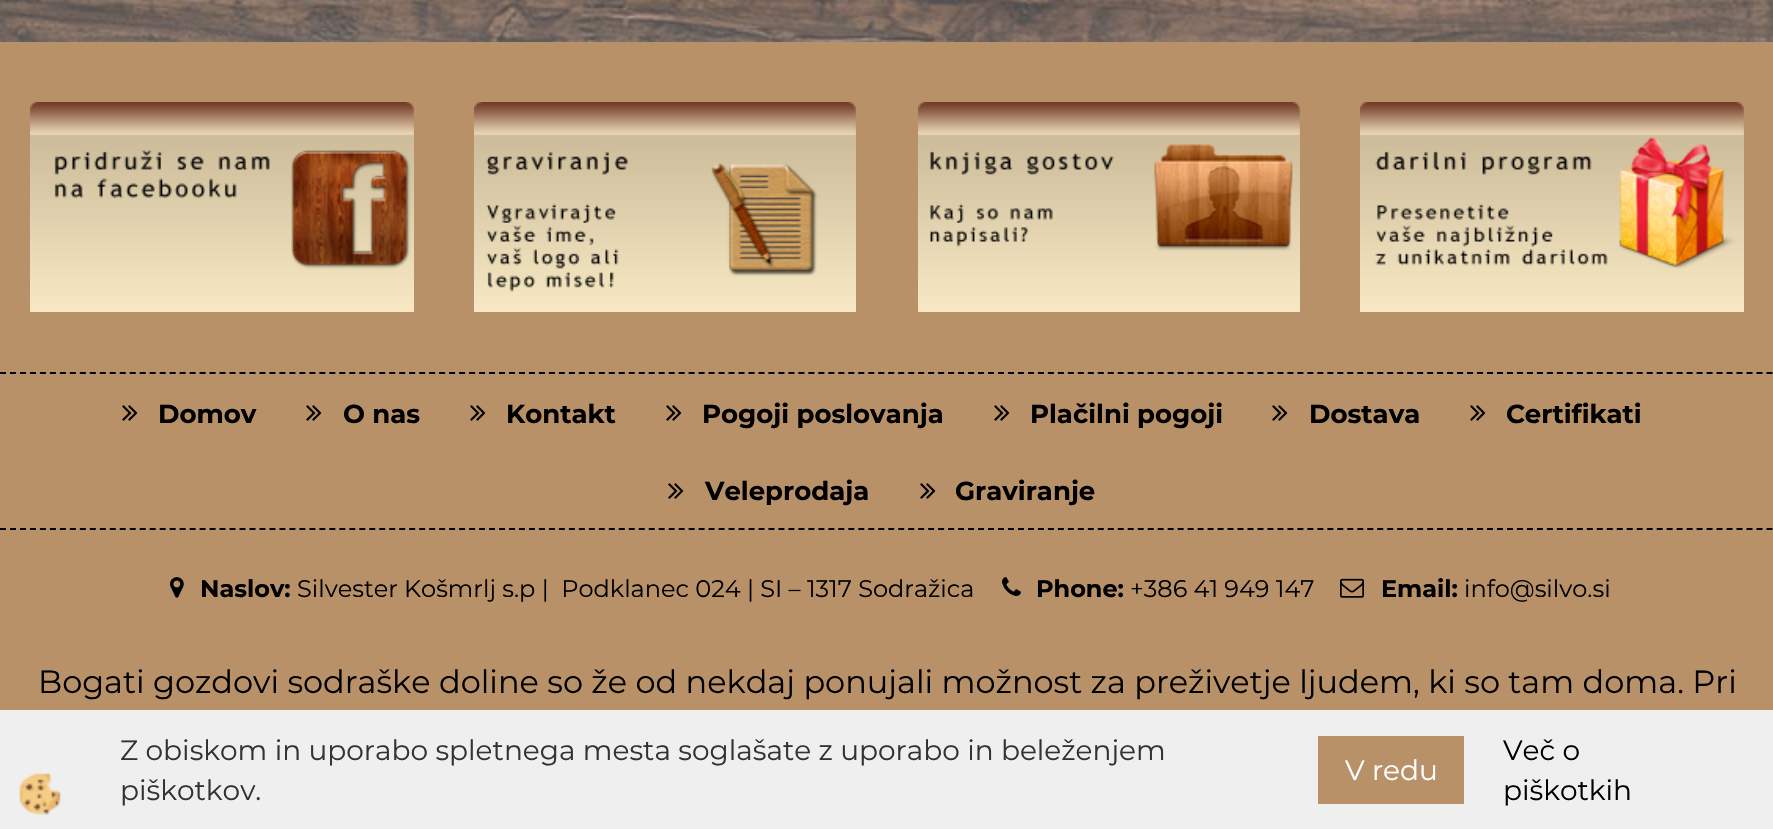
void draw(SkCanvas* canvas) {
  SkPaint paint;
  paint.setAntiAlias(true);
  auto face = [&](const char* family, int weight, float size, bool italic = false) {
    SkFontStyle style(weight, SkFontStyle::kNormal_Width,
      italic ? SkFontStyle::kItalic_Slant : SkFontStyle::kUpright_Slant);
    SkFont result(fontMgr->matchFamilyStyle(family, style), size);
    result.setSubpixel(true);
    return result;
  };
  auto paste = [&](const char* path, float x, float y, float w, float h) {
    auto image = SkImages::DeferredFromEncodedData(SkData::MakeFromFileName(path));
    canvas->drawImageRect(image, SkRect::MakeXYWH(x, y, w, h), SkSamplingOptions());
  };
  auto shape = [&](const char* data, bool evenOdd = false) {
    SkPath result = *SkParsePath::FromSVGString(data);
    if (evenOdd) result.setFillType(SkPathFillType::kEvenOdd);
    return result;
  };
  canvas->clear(0xffffffff);
  paste("img/1.png", 0, 0, 1773, 42);
  paint.setColor(0xffb89169);
  canvas->drawRect(SkRect::MakeXYWH(0, 42, 1773, 668), paint);
  paste("img/2.png", 30, 102, 384, 210);
  paste("img/3.png", 474, 102, 382, 210);
  paste("img/4.png", 918, 102, 382, 210);
  paste("img/5.png", 1360, 102, 384, 210);
  paint.setStroke(true);
  paint.setStrokeWidth(2);
  paint.setColor(0xff000000);
  paint.setPathEffect(SkDashPathEffect::Make({{6, 3.98f}}, 0));
  canvas->drawPath(shape("M0 373H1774"), paint);
  paint.setPathEffect(nullptr);
  paint.setPathEffect(SkDashPathEffect::Make({{6, 3.98f}}, 0));
  canvas->drawPath(shape("M0 529H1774"), paint);
  paint.setPathEffect(nullptr);
  paste("img/6.png", 122, 405, 16, 16);
  paste("img/6.png", 306, 405, 16, 16);
  paste("img/6.png", 470, 405, 16, 16);
  paste("img/6.png", 666, 405, 16, 16);
  paste("img/6.png", 994, 405, 16, 16);
  paste("img/6.png", 1272, 405, 16, 16);
  paste("img/6.png", 1470, 405, 16, 16);
  paste("img/6.png", 668, 483, 16, 16);
  paste("img/6.png", 920, 483, 16, 16);
  paste("img/7.png", 170, 577, 14, 21);
  paste("img/8.png", 1002, 577, 19, 19);
  paste("img/9.png", 1340, 578, 24, 20);
  paint.setStroke(false);
  paint.setColor(0xffefefef);
  canvas->drawRect(SkRect::MakeXYWH(0, 710, 1773, 119), paint);
  paste("img/10.png", 19, 773, 42, 42);
  paint.setColor(0xffb89169);
  canvas->drawRect(SkRect::MakeXYWH(1318, 736, 146, 68), paint);
  auto f0 = face("Montserrat", 700, 26);
  paint.setColor(0xff000000);
  {
    const struct { const char* s; float x, y; } items[] = {
      {"Domov", 158, 423},
      {"O nas", 343, 423},
      {"Kontakt", 506, 423},
      {"Pogoji poslovanja", 702, 423},
      {"Plačilni pogoji", 1030, 423},
      {"Dostava", 1309, 423},
      {"Certifikati", 1506, 423},
      {"Veleprodaja", 705, 500},
      {"Graviranje", 955, 500},
    };
    for (auto [s, x, y] : items) {
      canvas->drawString(s, x, y, f0, paint);
    }
  }
  auto f1 = face("Montserrat", 700, 24);
  canvas->drawString("Naslov:", 200, 597, f1, paint);
  auto f2 = face("Montserrat", 400, 24);
  canvas->drawString("Silvester Košmrlj s.p |  Podklanec 024 | SI – 1317 Sodražica", 297, 597, f2, paint);
  canvas->drawString("Phone:", 1036, 597, f1, paint);
  canvas->drawString("+386 41 949 147", 1130, 597, f2, paint);
  canvas->drawString("Email:", 1381, 597, f1, paint);
  canvas->drawString("info@silvo.si", 1464, 597, f2, paint);
  auto f3 = face("Montserrat", 400, 32);
  canvas->drawString("Bogati gozdovi sodraške doline so že od nekdaj ponujali možnost za preživetje ljudem, ki so tam doma. Pri", 38, 693, f3, paint);
  auto f4 = face("Montserrat", 400, 28);
  paint.setColor(0xff333333);
  canvas->drawString("Z obiskom in uporabo spletnega mesta soglašate z uporabo in beleženjem", 120, 760, f4, paint);
  paint.setColor(0xffffffff);
  canvas->drawString("V redu", 1345, 780, f4, paint);
  paint.setColor(0xff000000);
  canvas->drawString("Več o", 1503, 760, f4, paint);
  canvas->drawString("piškotkih", 1503, 800, f4, paint);
  paint.setColor(0xff333333);
  canvas->drawString("piškotkov.", 120, 800, f4, paint);
}
